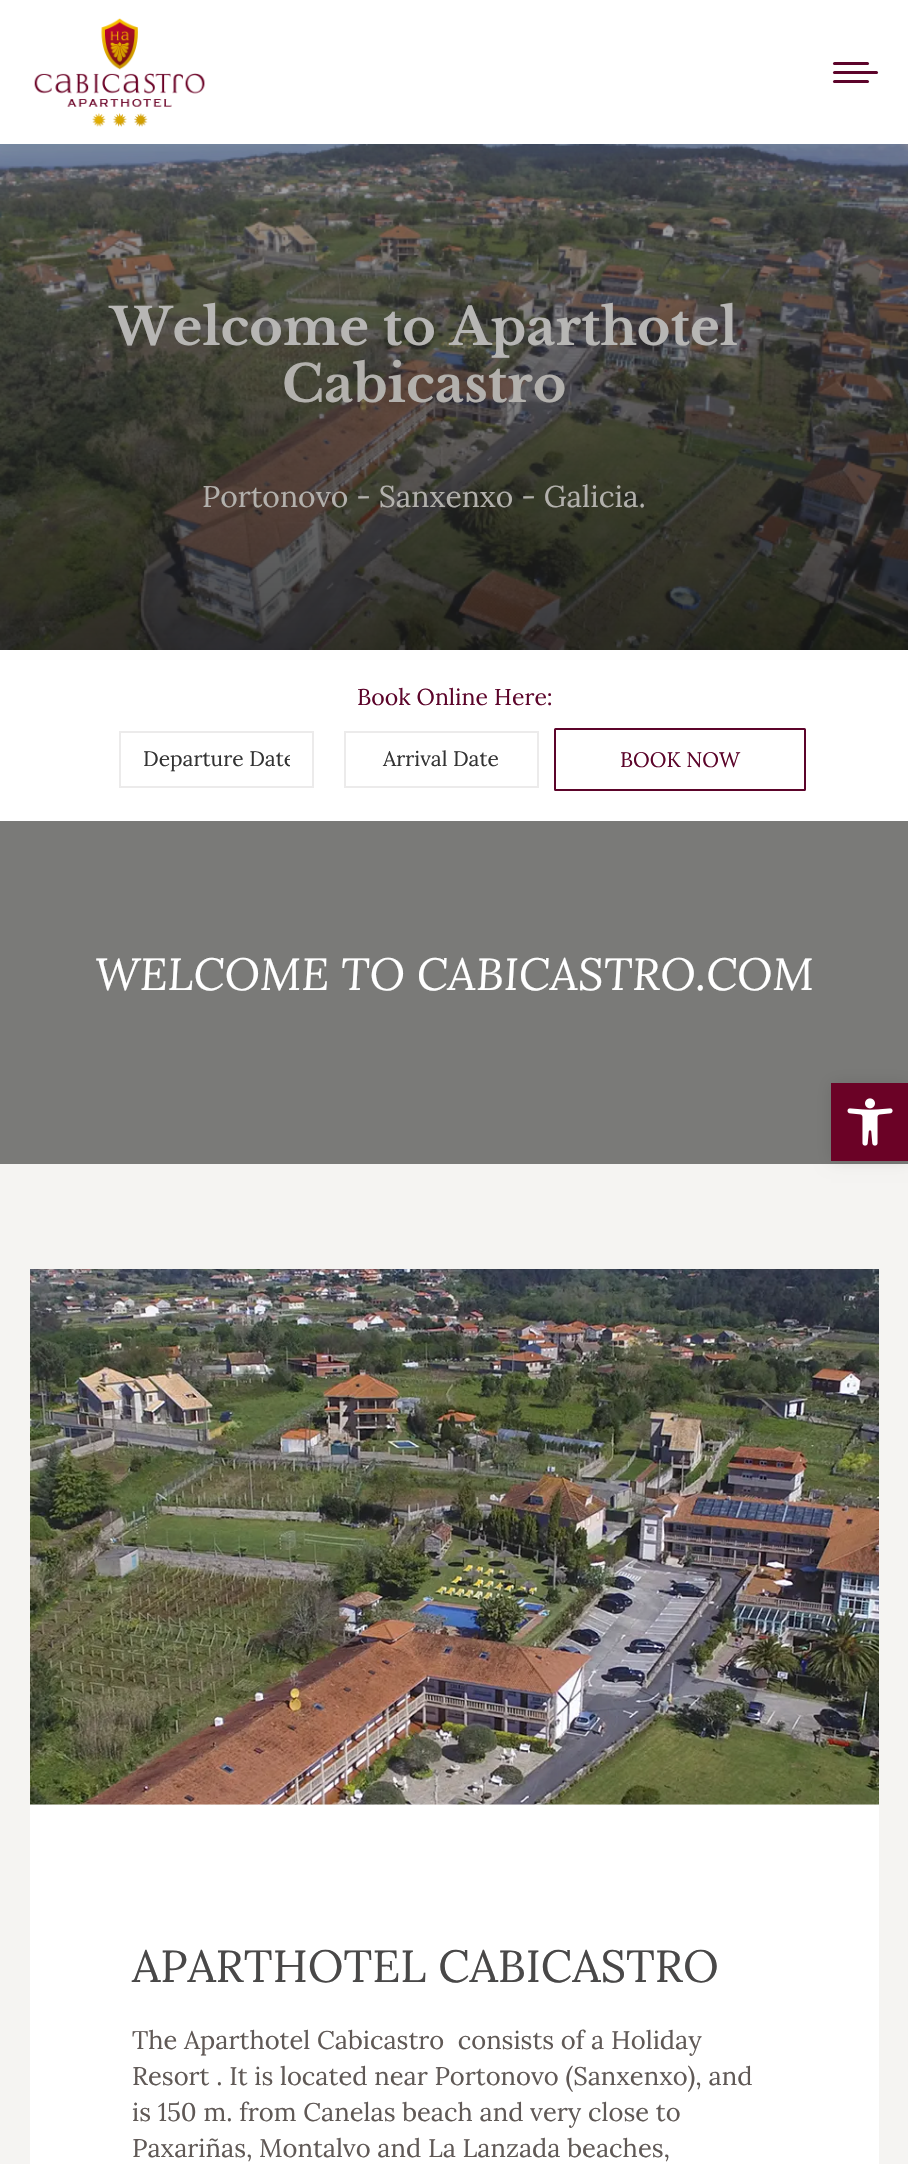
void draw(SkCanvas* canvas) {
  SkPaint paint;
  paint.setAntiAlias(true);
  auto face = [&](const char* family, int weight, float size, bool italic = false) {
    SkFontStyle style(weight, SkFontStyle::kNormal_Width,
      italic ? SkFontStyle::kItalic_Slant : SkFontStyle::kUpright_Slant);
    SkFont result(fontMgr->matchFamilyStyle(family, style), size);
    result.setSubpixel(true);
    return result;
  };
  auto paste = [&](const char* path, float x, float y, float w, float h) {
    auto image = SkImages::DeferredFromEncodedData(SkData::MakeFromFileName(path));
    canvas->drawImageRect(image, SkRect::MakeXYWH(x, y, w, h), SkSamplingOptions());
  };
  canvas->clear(0xfff5f4f2);
  paste("img/2.png", 0, 144, 908, 506);
  {
    const SkColor colors[] = {0x4d000000, 0xb3000000};
    const float stops[] = {0, 1};
    const SkPoint ends[] = {{455, 144}, {455, 650}};
    paint.setShader(SkGradientShader::MakeLinear(ends, colors, stops, 2, SkTileMode::kClamp));
    paint.setAlpha(255);
  }
  canvas->drawRect(SkRect::MakeXYWH(0, 144, 908, 506), paint);
  paint.setShader(nullptr);
  paint.setColor(0x12000000);
  paint.setMaskFilter(SkMaskFilter::MakeBlur(kNormal_SkBlurStyle, 11));
  canvas->drawRect(SkRect::MakeXYWH(-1, -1, 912, 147), paint);
  paint.setMaskFilter(nullptr);
  paint.setColor(0xffffffff);
  canvas->drawRect(SkRect::MakeXYWH(0, 0, 908, 144), paint);
  paste("img/1.png", 34, 18, 171, 109);
  paint.setColor(0xff5c042a);
  canvas->drawRoundRect(SkRect::MakeXYWH(833, 62, 36, 3), 1.5f, 1.5f, paint);
  canvas->drawRoundRect(SkRect::MakeXYWH(833, 71, 45, 3), 1.5f, 1.5f, paint);
  canvas->drawRoundRect(SkRect::MakeXYWH(833, 80, 36, 3), 1.5f, 1.5f, paint);
  paint.setColor(0xffffffff);
  canvas->drawRect(SkRect::MakeXYWH(0, 650, 908, 171), paint);
  paint.setStroke(true);
  paint.setStrokeWidth(2);
  paint.setColor(0xffecebeb);
  canvas->drawRect(SkRect::MakeXYWH(120, 732, 193, 55), paint);
  canvas->drawRect(SkRect::MakeXYWH(345, 732, 193, 55), paint);
  paint.setColor(0xff5c042a);
  canvas->drawRoundRect(SkRect::MakeXYWH(555, 729, 250, 61), 0.5f, 0.5f, paint);
  paint.setStroke(false);
  paint.setColor(0xff7a7a78);
  canvas->drawRect(SkRect::MakeXYWH(0, 821, 908, 343), paint);
  paste("img/3.png", 30, 1269, 849, 536);
  paint.setColor(0xffffffff);
  canvas->drawRect(SkRect::MakeXYWH(30, 1805, 849, 359), paint);
  paint.setColor(0x1a000000);
  paint.setMaskFilter(SkMaskFilter::MakeBlur(kNormal_SkBlurStyle, 7.5f));
  canvas->drawRect(SkRect::MakeXYWH(831, 1083, 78, 78), paint);
  paint.setMaskFilter(nullptr);
  paint.setColor(0xff6b0226);
  canvas->drawRect(SkRect::MakeXYWH(831, 1083, 77, 78), paint);
  paste("img/4.png", 847, 1098, 46, 48);
  auto f0 = face("Libre Baskerville", 700, 51);
  paint.setColor(0xffb7b6b4);
  canvas->drawString("Welcome to Aparthotel", 110, 345, f0, paint);
  paint.setColor(0xffb3b1ad);
  canvas->drawString("Cabicastro", 282, 402, f0, paint);
  auto f1 = face("Lora", 400, 30);
  canvas->drawString("Portonovo - Sanxenxo - Galicia.", 202, 507, f1, paint);
  auto f2 = face("Lora", 400, 23);
  paint.setColor(0xff5c042a);
  canvas->drawString("Book Online Here:", 357, 705, f2, paint);
  canvas->save();
  canvas->clipRect(SkRect::MakeXYWH(143, 746, 147, 27));
  auto f3 = face("Lora", 400, 21);
  paint.setColor(0xff333333);
  canvas->drawString("Departure Date", 143, 766, f3, paint);
  canvas->restore();
  canvas->drawString("Arrival Date", 383, 766, f3, paint);
  paint.setColor(0xff5c042a);
  canvas->drawString("BOOK NOW", 620, 767, f3, paint);
  auto f4 = face("Lora", 400, 45, true);
  paint.setColor(0xffffffff);
  canvas->drawString("WELCOME TO CABICASTRO.COM", 95, 990, f4, paint);
  auto f5 = face("Lora", 400, 45);
  paint.setColor(0xff494848);
  canvas->drawString("APARTHOTEL CABICASTRO", 132, 1982, f5, paint);
  auto f6 = face("Lora", 400, 25.5f);
  paint.setColor(0xff605956);
  {
    const struct { const char* s; float x, y; } items[] = {
      {"The Aparthotel Cabicastro  consists of a Holiday", 132, 2049},
      {"Resort . It is located near Portonovo (Sanxenxo), and", 132, 2085},
      {"is 150 m. from Canelas beach and very close to", 132, 2121},
      {"Paxariñas, Montalvo and La Lanzada beaches,", 132, 2157},
    };
    for (auto [s, x, y] : items) {
      canvas->drawString(s, x, y, f6, paint);
    }
  }
}
